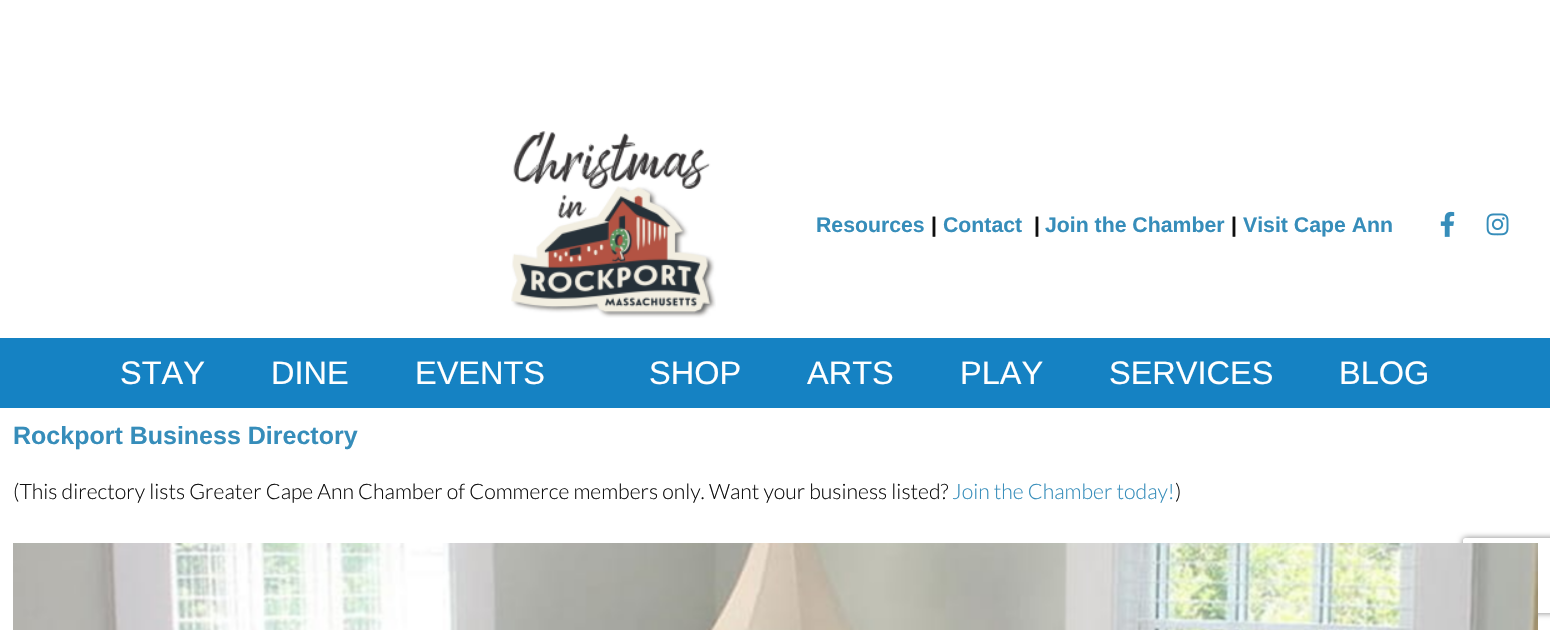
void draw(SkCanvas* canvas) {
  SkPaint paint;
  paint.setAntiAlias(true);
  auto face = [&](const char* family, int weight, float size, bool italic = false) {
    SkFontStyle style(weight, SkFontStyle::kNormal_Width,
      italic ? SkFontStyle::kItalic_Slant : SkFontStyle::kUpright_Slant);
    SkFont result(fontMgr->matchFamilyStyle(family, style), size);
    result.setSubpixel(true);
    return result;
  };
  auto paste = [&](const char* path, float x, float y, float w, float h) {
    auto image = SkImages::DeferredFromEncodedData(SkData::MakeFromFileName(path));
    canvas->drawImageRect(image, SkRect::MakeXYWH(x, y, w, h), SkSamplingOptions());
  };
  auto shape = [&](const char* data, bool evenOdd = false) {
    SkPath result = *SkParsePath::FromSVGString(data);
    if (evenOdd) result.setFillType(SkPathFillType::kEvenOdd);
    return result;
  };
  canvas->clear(0xffffffff);
  paste("img/1.png", 511, 131, 205, 187);
  paste("img/2.png", 1440, 211, 15, 26);
  paste("img/3.png", 1486, 213, 23, 23);
  paint.setColor(0xff1582c3);
  canvas->drawRect(SkRect::MakeXYWH(0, 338, 1550, 70), paint);
  canvas->save();
  canvas->clipPath(shape("M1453 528H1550V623H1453ZM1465.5 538H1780.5C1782 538 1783 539 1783 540.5V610.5C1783 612 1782 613 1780.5 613H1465.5C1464 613 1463 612 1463 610.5V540.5C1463 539 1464 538 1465.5 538Z", true), true);
  paint.setColor(0xff808080);
  paint.setMaskFilter(SkMaskFilter::MakeBlur(kNormal_SkBlurStyle, 3));
  canvas->drawRoundRect(SkRect::MakeXYWH(1463, 538, 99, 75), 2.5f, 2.5f, paint);
  paint.setMaskFilter(nullptr);
  canvas->restore();
  paste("img/4.png", 13, 543, 1525, 87);
  auto f0 = face("Liberation Sans", 700, 21.25f);
  paint.setColor(0xff368dba);
  canvas->drawString("Resources", 816, 232, f0, paint);
  paint.setColor(0xff0e0e0e);
  canvas->drawString("|", 931, 232, f0, paint);
  paint.setColor(0xff368dba);
  canvas->drawString("Contact", 943, 232, f0, paint);
  paint.setColor(0xff0e0e0e);
  canvas->drawString("|", 1034, 232, f0, paint);
  paint.setColor(0xff368dba);
  canvas->drawString("Join the Chamber", 1045, 232, f0, paint);
  paint.setColor(0xff0e0e0e);
  canvas->drawString("|", 1231, 232, f0, paint);
  paint.setColor(0xff368dba);
  canvas->drawString("Visit Cape Ann", 1243, 232, f0, paint);
  auto f1 = face("Liberation Sans", 400, 32.5f);
  paint.setColor(0xffffffff);
  {
    const struct { const char* s; float x, y; } items[] = {
      {"STAY", 120, 384},
      {"DINE", 271, 384},
      {"EVENTS", 415, 384},
      {"SHOP", 649, 384},
      {"ARTS", 807, 384},
      {"PLAY", 960, 384},
      {"SERVICES", 1109, 384},
      {"BLOG", 1339, 384},
    };
    for (auto [s, x, y] : items) {
      canvas->drawString(s, x, y, f1, paint);
    }
  }
  auto f2 = face("Liberation Sans", 700, 25);
  paint.setColor(0xff368dba);
  canvas->drawString("Rockport Business Directory", 13, 444, f2, paint);
  auto f3 = face("Lato", 300, 21.25f);
  paint.setColor(0xff0e0e0e);
  canvas->drawString("(This directory lists Greater Cape Ann Chamber of Commerce members only. Want your business listed?", 13, 499, f3, paint);
  paint.setColor(0xff368dba);
  canvas->drawString("Join the Chamber today!", 952, 499, f3, paint);
  paint.setColor(0xff0e0e0e);
  canvas->drawString(")", 1175, 499, f3, paint);
}
